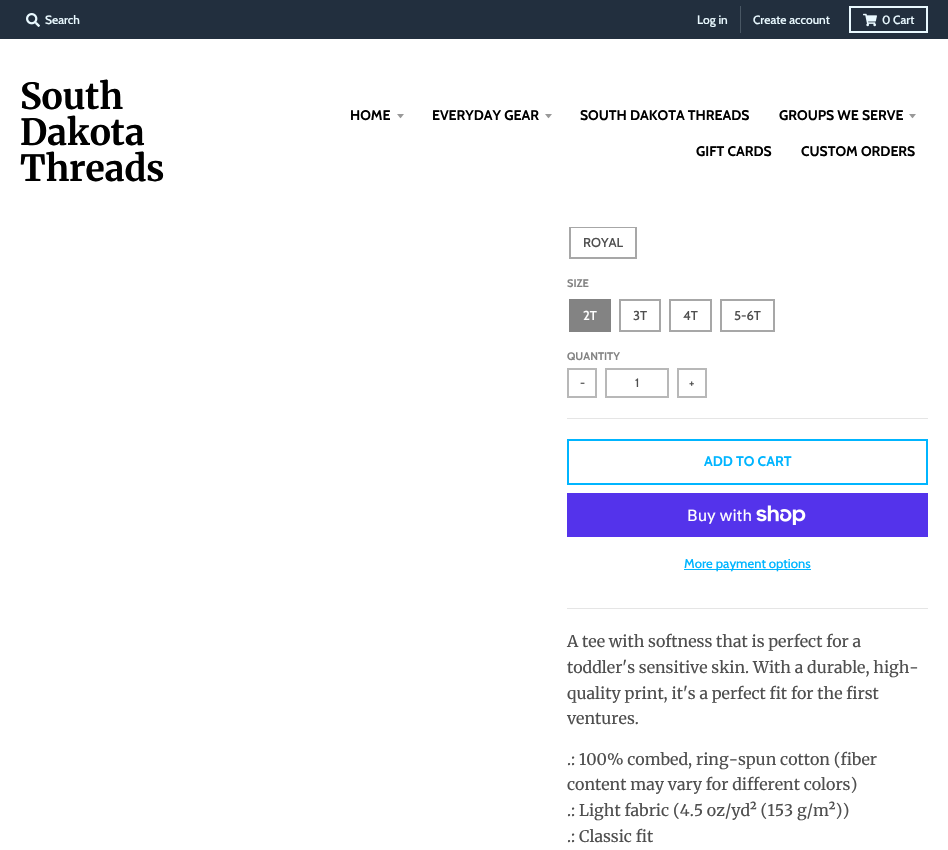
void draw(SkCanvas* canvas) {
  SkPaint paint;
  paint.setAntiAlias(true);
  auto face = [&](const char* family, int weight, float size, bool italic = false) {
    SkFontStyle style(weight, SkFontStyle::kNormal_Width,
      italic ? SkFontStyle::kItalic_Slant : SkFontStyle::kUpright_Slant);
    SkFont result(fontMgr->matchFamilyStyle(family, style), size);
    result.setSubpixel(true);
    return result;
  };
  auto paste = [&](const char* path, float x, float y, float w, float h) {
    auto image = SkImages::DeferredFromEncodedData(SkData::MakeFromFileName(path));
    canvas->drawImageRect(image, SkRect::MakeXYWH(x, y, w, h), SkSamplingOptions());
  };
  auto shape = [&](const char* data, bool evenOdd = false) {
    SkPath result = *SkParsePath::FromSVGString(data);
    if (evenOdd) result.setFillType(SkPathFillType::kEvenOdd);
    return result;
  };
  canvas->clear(0xffffffff);
  paint.setColor(0xff222f3e);
  canvas->drawRect(SkRect::MakeXYWH(0, 0, 948, 39), paint);
  paste("img/1.png", 26, 13, 14, 14);
  paint.setColor(0xff495764);
  canvas->drawRect(SkRect::MakeXYWH(740, 6, 1, 27), paint);
  paint.setStroke(true);
  paint.setStrokeWidth(2);
  paint.setColor(0xffe9f9ff);
  canvas->drawRect(SkRect::MakeXYWH(850, 7, 77, 25), paint);
  paste("img/2.png", 863, 13, 14, 14);
  paint.setColor(0xffa7a7a7);
  canvas->drawRect(SkRect::MakeXYWH(570, 227, 66, 31), paint);
  paint.setStroke(false);
  paint.setColor(0xffffffff);
  canvas->drawRect(SkRect::MakeXYWH(569, 226, 68, 1), paint);
  paint.setColor(0xff999999);
  canvas->drawPath(shape("M397 114C401.5 119.5 399.5 119.5 404 114Z"), paint);
  canvas->drawPath(shape("M545 114C549.5 119.5 547.5 119.5 552 114Z"), paint);
  canvas->drawPath(shape("M909 114C913.5 119.5 911.5 119.5 916 114Z"), paint);
  {
    const struct { float x, y, w, h; SkColor color; } items[] = {
      {567, 608, 361, 1, 0xffe5e5e5},
      {567, 418, 361, 1, 0xffe5e5e5},
      {569, 299, 42, 33, 0xff838383},
    };
    for (auto [x, y, w, h, color] : items) {
      paint.setColor(color);
      canvas->drawRect(SkRect::MakeXYWH(x, y, w, h), paint);
    }
  }
  paint.setStroke(true);
  paint.setColor(0xffa7a7a7);
  canvas->drawRect(SkRect::MakeXYWH(620, 300, 40, 31), paint);
  canvas->drawRect(SkRect::MakeXYWH(670, 300, 41, 31), paint);
  canvas->drawRect(SkRect::MakeXYWH(721, 300, 53, 31), paint);
  paint.setColor(0xffb8b8b8);
  canvas->drawRect(SkRect::MakeXYWH(568, 369, 28, 28), paint);
  canvas->drawRect(SkRect::MakeXYWH(606, 369, 62, 28), paint);
  canvas->drawRect(SkRect::MakeXYWH(678, 369, 28, 28), paint);
  paint.setColor(0xff00b5ff);
  canvas->drawRect(SkRect::MakeXYWH(568, 440, 359, 44), paint);
  paint.setStroke(false);
  paint.setColor(0xff5433eb);
  canvas->drawRect(SkRect::MakeXYWH(567, 493, 361, 44), paint);
  paste("img/3.png", 756, 505, 50, 20);
  paint.setColor(0xff00b5ff);
  canvas->drawRect(SkRect::MakeXYWH(684, 569, 127, 1), paint);
  auto f0 = face("Cabin", 500, 12);
  paint.setColor(0xffe9f9ff);
  {
    const struct { const char* s; float x, y; } items[] = {
      {"Search", 45, 24},
      {"Log in", 697, 24},
      {"Create account", 753, 24},
      {"0 Cart", 882, 24},
    };
    for (auto [s, x, y] : items) {
      canvas->drawString(s, x, y, f0, paint);
    }
  }
  auto f1 = face("Merriweather", 700, 36);
  paint.setColor(0xff000000);
  {
    const struct { const char* s; float x, y; } items[] = {
      {"South", 20, 109},
      {"Dakota", 20, 145},
      {"Threads", 20, 181},
    };
    for (auto [s, x, y] : items) {
      canvas->drawString(s, x, y, f1, paint);
    }
  }
  auto f2 = face("Cabin", 700, 14);
  {
    const struct { const char* s; float x, y; } items[] = {
      {"HOME", 350, 120},
      {"EVERYDAY GEAR", 432, 120},
      {"SOUTH DAKOTA THREADS", 580, 120},
      {"GROUPS WE SERVE", 779, 120},
      {"GIFT CARDS", 696, 156},
      {"CUSTOM ORDERS", 801, 156},
    };
    for (auto [s, x, y] : items) {
      canvas->drawString(s, x, y, f2, paint);
    }
  }
  auto f3 = face("Cabin", 500, 13);
  paint.setColor(0xff4f4f4f);
  canvas->drawString("ROYAL", 583, 247, f3, paint);
  auto f4 = face("Cabin", 700, 11);
  paint.setColor(0xff838383);
  canvas->drawString("SIZE", 567, 287, f4, paint);
  paint.setColor(0xffffffff);
  canvas->drawString("2T", 583, 320, f3, paint);
  paint.setColor(0xff4f4f4f);
  {
    const struct { const char* s; float x, y; } items[] = {
      {"3T", 633, 320},
      {"4T", 683, 320},
      {"5-6T", 734, 320},
    };
    for (auto [s, x, y] : items) {
      canvas->drawString(s, x, y, f3, paint);
    }
  }
  paint.setColor(0xff838383);
  canvas->drawString("QUANTITY", 567, 360, f4, paint);
  paint.setColor(0xff4f4f4f);
  {
    const struct { const char* s; float x, y; } items[] = {
      {"-", 580, 387},
      {"1", 635, 387},
      {"+", 689, 387},
    };
    for (auto [s, x, y] : items) {
      canvas->drawString(s, x, y, f0, paint);
    }
  }
  paint.setColor(0xff00b5ff);
  canvas->drawString("ADD TO CART", 704, 466, f2, paint);
  auto f5 = face("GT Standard", 400, 16);
  paint.setColor(0xffffffff);
  canvas->drawString("Buy with", 687, 521, f5, paint);
  paint.setColor(0xff00b5ff);
  canvas->drawString("More payment options", 684, 568, f3, paint);
  auto f6 = face("Merriweather", 400, 16);
  paint.setColor(0xff4f4f4f);
  {
    const struct { const char* s; float x, y; } items[] = {
      {"A tee with softness that is perfect for a", 567, 647},
      {"toddler's sensitive skin. With a durable, high-", 567, 673},
      {"quality print, it's a perfect fit for the first", 567, 699},
      {"ventures.", 567, 724},
      {".: 100% combed, ring-spun cotton (fiber", 567, 765},
      {"content may vary for different colors)", 567, 790},
      {".: Light fabric (4.5 oz/yd² (153 g/m²))", 567, 816},
      {".: Classic fit", 567, 842},
    };
    for (auto [s, x, y] : items) {
      canvas->drawString(s, x, y, f6, paint);
    }
  }
}
